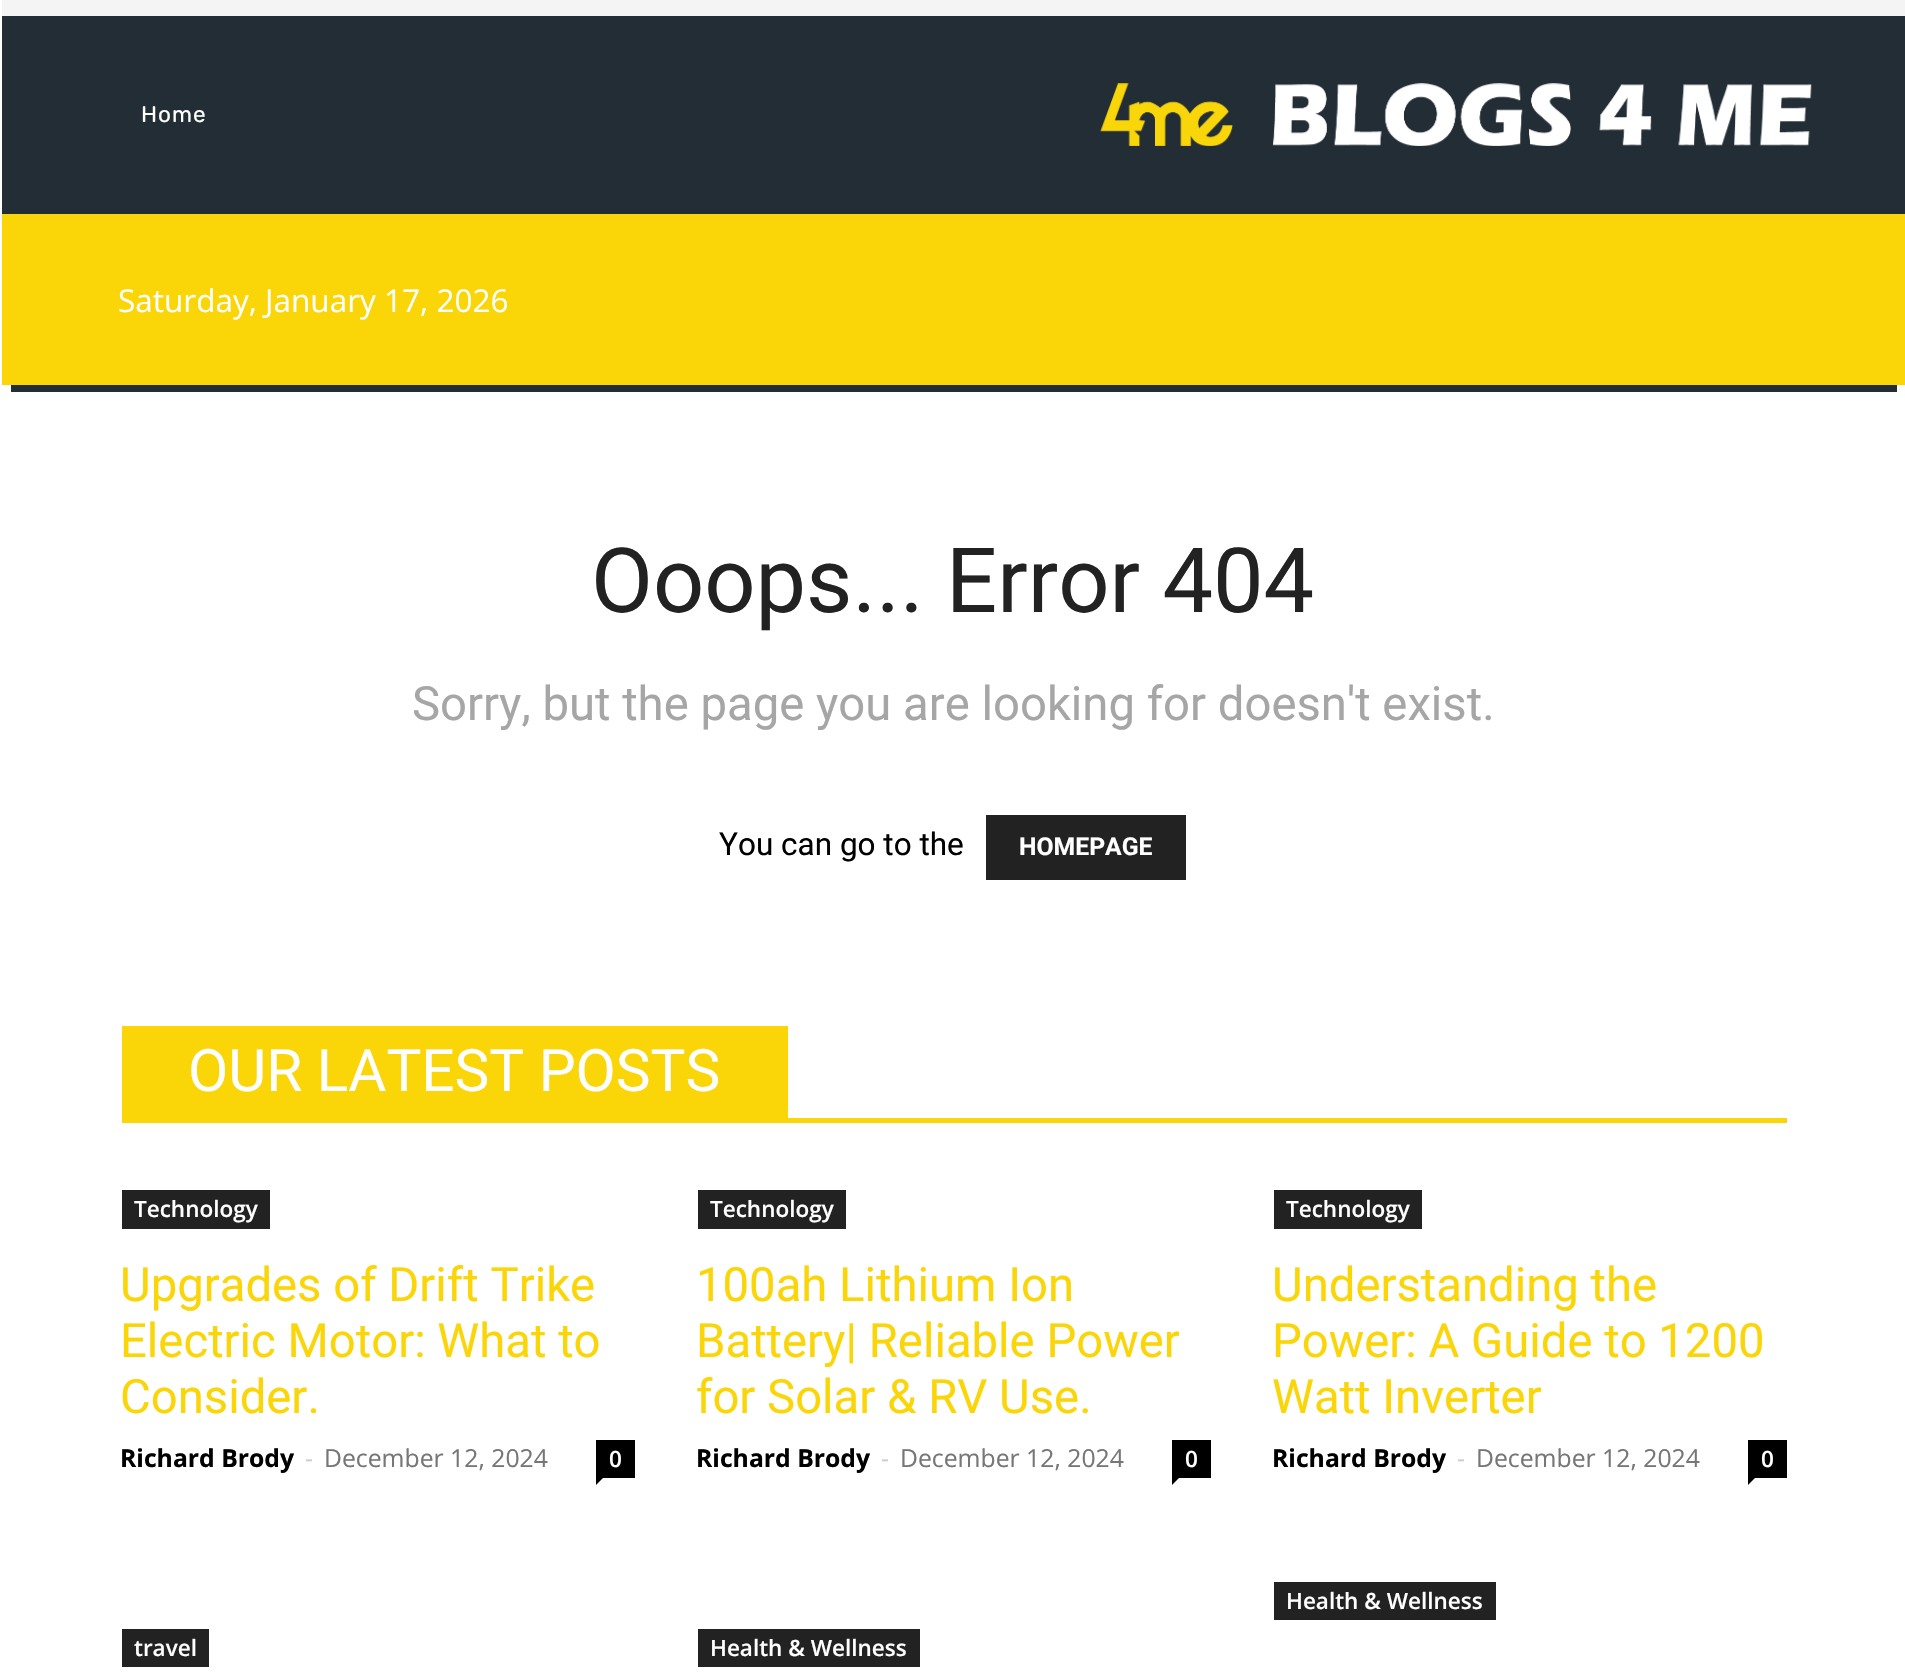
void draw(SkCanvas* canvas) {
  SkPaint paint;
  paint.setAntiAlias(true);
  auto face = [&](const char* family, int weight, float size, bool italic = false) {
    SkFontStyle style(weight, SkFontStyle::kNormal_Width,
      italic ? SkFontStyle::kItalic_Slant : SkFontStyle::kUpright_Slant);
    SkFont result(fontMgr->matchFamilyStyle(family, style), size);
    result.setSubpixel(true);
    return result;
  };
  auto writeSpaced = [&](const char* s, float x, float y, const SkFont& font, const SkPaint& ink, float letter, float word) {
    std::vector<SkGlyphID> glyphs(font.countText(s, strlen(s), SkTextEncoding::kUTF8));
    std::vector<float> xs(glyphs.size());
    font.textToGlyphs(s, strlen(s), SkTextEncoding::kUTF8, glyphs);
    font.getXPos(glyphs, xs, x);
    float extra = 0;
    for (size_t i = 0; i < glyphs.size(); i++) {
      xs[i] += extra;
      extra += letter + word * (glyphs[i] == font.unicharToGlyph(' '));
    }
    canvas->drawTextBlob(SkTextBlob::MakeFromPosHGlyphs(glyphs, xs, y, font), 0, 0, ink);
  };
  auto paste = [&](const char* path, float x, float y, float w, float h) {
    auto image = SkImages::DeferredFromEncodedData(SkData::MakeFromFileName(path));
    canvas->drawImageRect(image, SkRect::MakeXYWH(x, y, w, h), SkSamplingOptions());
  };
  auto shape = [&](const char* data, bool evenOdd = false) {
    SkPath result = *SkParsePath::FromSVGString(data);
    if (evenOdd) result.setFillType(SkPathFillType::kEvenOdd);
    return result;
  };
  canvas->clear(0xffffffff);
  paint.setColor(0xfff4f4f4);
  canvas->drawRect(SkRect::MakeXYWH(2, 0, 1903, 16), paint);
  paint.setColor(0xff232d35);
  canvas->drawRect(SkRect::MakeXYWH(2, 16, 1903, 198), paint);
  paste("img/1.png", 1100, 83, 712, 63);
  {
    const struct { float x, y, w, h; SkColor color; } items[] = {
      {2, 214, 1903, 171, 0xfffad508},
      {11, 385, 1886, 7, 0xff232d35},
      {986, 815, 200, 65, 0xff222222},
      {122, 1118, 1665, 5, 0xfffad508},
      {122, 1026, 666, 92, 0xfffad508},
      {122, 1190, 148, 39, 0xff222222},
      {596, 1440, 39, 38, 0xff000000},
    };
    for (auto [x, y, w, h, color] : items) {
      paint.setColor(color);
      canvas->drawRect(SkRect::MakeXYWH(x, y, w, h), paint);
    }
  }
  canvas->drawPath(shape("M596 1478H603L596 1485Z"), paint);
  paint.setColor(0xff222222);
  canvas->drawRect(SkRect::MakeXYWH(698, 1190, 148, 39), paint);
  paint.setColor(0xff000000);
  canvas->drawRect(SkRect::MakeXYWH(1172, 1440, 39, 38), paint);
  canvas->drawPath(shape("M1172 1478H1179L1172 1485Z"), paint);
  paint.setColor(0xff222222);
  canvas->drawRect(SkRect::MakeXYWH(1274, 1190, 148, 39), paint);
  paint.setColor(0xff000000);
  canvas->drawRect(SkRect::MakeXYWH(1748, 1440, 39, 38), paint);
  canvas->drawPath(shape("M1748 1478H1755L1748 1485Z"), paint);
  {
    const struct { float x, y, w, h; SkColor color; } items[] = {
      {1274, 1582, 222, 38, 0xff222222},
      {122, 1629, 87, 38, 0xff222222},
      {698, 1629, 222, 38, 0xff222222},
    };
    for (auto [x, y, w, h, color] : items) {
      paint.setColor(color);
      canvas->drawRect(SkRect::MakeXYWH(x, y, w, h), paint);
    }
  }
  auto f0 = face("Rubik", 400, 22.5f);
  paint.setColor(0xffffffff);
  writeSpaced("Home", 141, 122, f0, paint, 1, 0);
  auto f1 = face("Open Sans", 400, 31.5f);
  canvas->drawString("Saturday, January 17, 2026", 118, 312, f1, paint);
  auto f2 = face("Roboto", 400, 90);
  paint.setColor(0xff222222);
  canvas->drawString("Ooops... Error 404", 591, 612, f2, paint);
  auto f3 = face("Roboto", 400, 47.25f);
  paint.setColor(0xffa6a6a6);
  canvas->drawString("Sorry, but the page you are looking for doesn't exist.", 412, 720, f3, paint);
  auto f4 = face("Roboto", 400, 31.5f);
  paint.setColor(0xff000000);
  canvas->drawString("You can go to the", 719, 855, f4, paint);
  auto f5 = face("Roboto", 700, 24.75f);
  paint.setColor(0xffffffff);
  canvas->drawString("HOMEPAGE", 1019, 855, f5, paint);
  auto f6 = face("Roboto", 400, 58.5f);
  canvas->drawString("OUR LATEST POSTS", 188, 1091, f6, paint);
  auto f7 = face("Open Sans", 600, 22.5f);
  canvas->drawString("Technology", 134, 1217, f7, paint);
  paint.setColor(0xfffad508);
  {
    const struct { const char* s; float x, y; } items[] = {
      {"Upgrades of Drift Trike", 120, 1301},
      {"Electric Motor: What to", 120, 1357},
      {"Consider.", 120, 1413},
    };
    for (auto [s, x, y] : items) {
      canvas->drawString(s, x, y, f3, paint);
    }
  }
  auto f8 = face("Open Sans", 700, 24.75f);
  paint.setColor(0xff000000);
  canvas->drawString("Richard Brody", 120, 1467, f8, paint);
  auto f9 = face("Open Sans", 400, 24.75f);
  paint.setColor(0xffcccccc);
  canvas->drawString("-", 305, 1467, f9, paint);
  paint.setColor(0xff767676);
  canvas->drawString("December 12, 2024", 324, 1467, f9, paint);
  paint.setColor(0xffffffff);
  canvas->drawString("0", 609, 1467, f7, paint);
  canvas->drawString("Technology", 710, 1217, f7, paint);
  paint.setColor(0xfffad508);
  {
    const struct { const char* s; float x, y; } items[] = {
      {"100ah Lithium Ion", 696, 1301},
      {"Battery| Reliable Power", 696, 1357},
      {"for Solar & RV Use.", 696, 1413},
    };
    for (auto [s, x, y] : items) {
      canvas->drawString(s, x, y, f3, paint);
    }
  }
  paint.setColor(0xff000000);
  canvas->drawString("Richard Brody", 696, 1467, f8, paint);
  paint.setColor(0xffcccccc);
  canvas->drawString("-", 881, 1467, f9, paint);
  paint.setColor(0xff767676);
  canvas->drawString("December 12, 2024", 900, 1467, f9, paint);
  paint.setColor(0xffffffff);
  canvas->drawString("0", 1185, 1467, f7, paint);
  canvas->drawString("Technology", 1286, 1217, f7, paint);
  paint.setColor(0xfffad508);
  {
    const struct { const char* s; float x, y; } items[] = {
      {"Understanding the", 1272, 1301},
      {"Power: A Guide to 1200", 1272, 1357},
      {"Watt Inverter", 1272, 1413},
    };
    for (auto [s, x, y] : items) {
      canvas->drawString(s, x, y, f3, paint);
    }
  }
  paint.setColor(0xff000000);
  canvas->drawString("Richard Brody", 1272, 1467, f8, paint);
  paint.setColor(0xffcccccc);
  canvas->drawString("-", 1457, 1467, f9, paint);
  paint.setColor(0xff767676);
  canvas->drawString("December 12, 2024", 1476, 1467, f9, paint);
  paint.setColor(0xffffffff);
  {
    const struct { const char* s; float x, y; } items[] = {
      {"0", 1761, 1467},
      {"Health & Wellness", 1286, 1609},
      {"travel", 134, 1656},
      {"Health & Wellness", 710, 1656},
    };
    for (auto [s, x, y] : items) {
      canvas->drawString(s, x, y, f7, paint);
    }
  }
}
